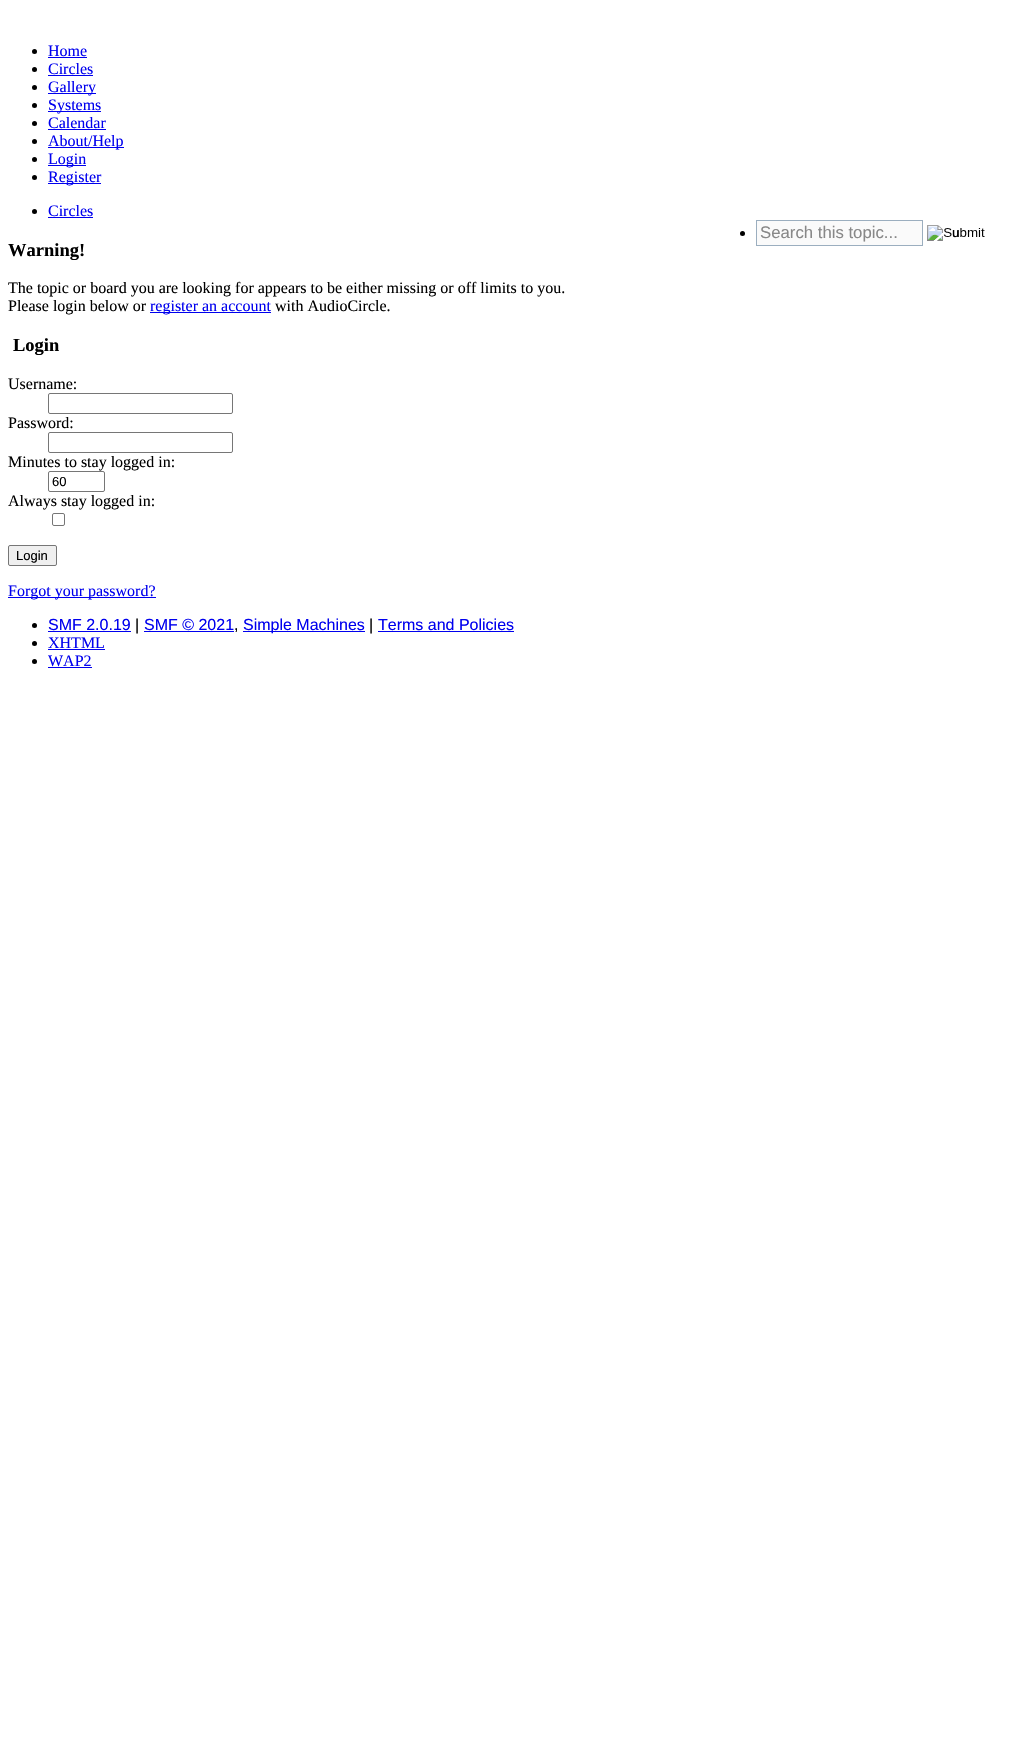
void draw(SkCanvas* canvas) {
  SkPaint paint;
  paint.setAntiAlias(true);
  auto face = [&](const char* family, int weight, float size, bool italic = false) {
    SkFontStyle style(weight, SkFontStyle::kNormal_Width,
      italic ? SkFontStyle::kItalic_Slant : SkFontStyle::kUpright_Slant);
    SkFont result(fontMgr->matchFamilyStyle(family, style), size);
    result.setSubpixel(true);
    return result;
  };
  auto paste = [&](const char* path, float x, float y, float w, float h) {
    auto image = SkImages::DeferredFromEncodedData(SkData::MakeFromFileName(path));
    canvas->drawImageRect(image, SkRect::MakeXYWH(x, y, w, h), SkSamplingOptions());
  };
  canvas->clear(0xffffffff);
  paint.setColor(0xff000000);
  canvas->drawCircle(34.5f, 51.5f, 2.5f, paint);
  paint.setColor(0xff0000ee);
  canvas->drawRect(SkRect::MakeXYWH(48, 57, 39, 1), paint);
  paint.setColor(0xff000000);
  canvas->drawCircle(34.5f, 69.5f, 2.5f, paint);
  paint.setColor(0xff0000ee);
  canvas->drawRect(SkRect::MakeXYWH(48, 75, 45, 1), paint);
  paint.setColor(0xff000000);
  canvas->drawCircle(34.5f, 87.5f, 2.5f, paint);
  paint.setColor(0xff0000ee);
  canvas->drawRect(SkRect::MakeXYWH(48, 93, 48, 1), paint);
  paint.setColor(0xff000000);
  canvas->drawCircle(34.5f, 105.5f, 2.5f, paint);
  paint.setColor(0xff0000ee);
  canvas->drawRect(SkRect::MakeXYWH(48, 111, 53, 1), paint);
  paint.setColor(0xff000000);
  canvas->drawCircle(34.5f, 123.5f, 2.5f, paint);
  paint.setColor(0xff0000ee);
  canvas->drawRect(SkRect::MakeXYWH(48, 129, 58, 1), paint);
  paint.setColor(0xff000000);
  canvas->drawCircle(34.5f, 141.5f, 2.5f, paint);
  paint.setColor(0xff0000ee);
  canvas->drawRect(SkRect::MakeXYWH(48, 147, 76, 1), paint);
  paint.setColor(0xff000000);
  canvas->drawCircle(34.5f, 159.5f, 2.5f, paint);
  paint.setColor(0xff0000ee);
  canvas->drawRect(SkRect::MakeXYWH(48, 165, 38, 1), paint);
  paint.setColor(0xff000000);
  canvas->drawCircle(34.5f, 177.5f, 2.5f, paint);
  paint.setColor(0xff0000ee);
  canvas->drawRect(SkRect::MakeXYWH(48, 183, 53, 1), paint);
  paint.setColor(0xff000000);
  canvas->drawCircle(34.5f, 211.5f, 2.5f, paint);
  paint.setColor(0xff0000ee);
  canvas->drawRect(SkRect::MakeXYWH(48, 217, 45, 1), paint);
  paint.setColor(0xff000000);
  canvas->drawCircle(742.5f, 233.5f, 2.5f, paint);
  paint.setColor(0xfffafafa);
  canvas->drawRect(SkRect::MakeXYWH(756.5f, 220.5f, 166, 25), paint);
  paint.setStroke(true);
  paint.setStrokeWidth(1);
  paint.setColor(0xff9baebf);
  canvas->drawRect(SkRect::MakeXYWH(756.5f, 220.5f, 166, 25), paint);
  paste("img/1.png", 927, 225, 58, 16);
  paint.setStroke(false);
  paint.setColor(0xff0000ee);
  canvas->drawRect(SkRect::MakeXYWH(150, 312, 121, 1), paint);
  paint.setStroke(true);
  paint.setColor(0xff767676);
  canvas->drawRoundRect(SkRect::MakeXYWH(48.5f, 393.5f, 184, 20), 1.5f, 1.5f, paint);
  canvas->drawRoundRect(SkRect::MakeXYWH(48.5f, 432.5f, 184, 20), 1.5f, 1.5f, paint);
  canvas->drawRoundRect(SkRect::MakeXYWH(48.5f, 471.5f, 56, 20), 1.5f, 1.5f, paint);
  canvas->drawRoundRect(SkRect::MakeXYWH(52.5f, 513.5f, 12, 12), 1.5f, 1.5f, paint);
  paint.setStroke(false);
  paint.setColor(0xffefefef);
  canvas->drawRoundRect(SkRect::MakeXYWH(8.5f, 545.5f, 48, 20), 1.5f, 1.5f, paint);
  paint.setStroke(true);
  paint.setColor(0xff767676);
  canvas->drawRoundRect(SkRect::MakeXYWH(8.5f, 545.5f, 48, 20), 1.5f, 1.5f, paint);
  paint.setStroke(false);
  paint.setColor(0xff0000ee);
  canvas->drawRect(SkRect::MakeXYWH(8, 597, 148, 1), paint);
  paint.setColor(0xff000000);
  canvas->drawCircle(34.5f, 625.5f, 2.5f, paint);
  {
    const struct { float x, y, w, h; SkColor color; } items[] = {
      {48, 631, 83, 1, 0xff0000ee},
      {378, 631, 136, 1, 0xff0000ee},
      {144, 631, 90, 1, 0xff0000ee},
      {243, 631, 122, 1, 0xff0000ee},
    };
    for (auto [x, y, w, h, color] : items) {
      paint.setColor(color);
      canvas->drawRect(SkRect::MakeXYWH(x, y, w, h), paint);
    }
  }
  paint.setColor(0xff000000);
  canvas->drawCircle(34.5f, 643.5f, 2.5f, paint);
  paint.setColor(0xff0000ee);
  canvas->drawRect(SkRect::MakeXYWH(48, 649, 57, 1), paint);
  paint.setColor(0xff000000);
  canvas->drawCircle(34.5f, 661.5f, 2.5f, paint);
  paint.setColor(0xff0000ee);
  canvas->drawRect(SkRect::MakeXYWH(48, 667, 44, 1), paint);
  auto f0 = face("Liberation Serif", 400, 16);
  {
    const struct { const char* s; float x, y; } items[] = {
      {"Home", 48, 56},
      {"Circles", 48, 74},
      {"Gallery", 48, 92},
      {"Systems", 48, 110},
      {"Calendar", 48, 128},
      {"About/Help", 48, 146},
      {"Login", 48, 164},
      {"Register", 48, 182},
      {"Circles", 48, 216},
    };
    for (auto [s, x, y] : items) {
      canvas->drawString(s, x, y, f0, paint);
    }
  }
  auto f1 = face("Liberation Sans", 400, 16.75f);
  paint.setColor(0xff888888);
  canvas->drawString("Search this topic...", 760, 238, f1, paint);
  auto f2 = face("Liberation Sans", 400, 13);
  paint.setColor(0xff000000);
  canvas->drawString("u", 952, 237, f2, paint);
  auto f3 = face("Liberation Serif", 700, 18.5f);
  canvas->drawString("Warning!", 8, 256, f3, paint);
  canvas->drawString("The topic or board you are looking for appears to be either missing or off limits to you.", 8, 293, f0, paint);
  canvas->drawString("Please login below or", 8, 311, f0, paint);
  paint.setColor(0xff0000ee);
  canvas->drawString("register an account", 150, 311, f0, paint);
  paint.setColor(0xff000000);
  canvas->drawString("with AudioCircle.", 275, 311, f0, paint);
  canvas->drawString("Login", 13, 351, f3, paint);
  {
    const struct { const char* s; float x, y; } items[] = {
      {"Username:", 8, 389},
      {"Password:", 8, 428},
      {"Minutes to stay logged in:", 8, 467},
    };
    for (auto [s, x, y] : items) {
      canvas->drawString(s, x, y, f0, paint);
    }
  }
  canvas->drawString("60", 52, 486, f2, paint);
  canvas->drawString("Always stay logged in:", 8, 506, f0, paint);
  canvas->drawString("Login", 16, 560, f2, paint);
  paint.setColor(0xff0000ee);
  canvas->drawString("Forgot your password?", 8, 596, f0, paint);
  auto f4 = face("Liberation Sans", 400, 16);
  canvas->drawString("SMF 2.0.19", 48, 630, f4, paint);
  paint.setColor(0xff000000);
  canvas->drawString("|", 135, 630, f4, paint);
  paint.setColor(0xff0000ee);
  canvas->drawString("SMF © 2021", 144, 630, f4, paint);
  canvas->drawString("Simple Machines", 243, 630, f4, paint);
  paint.setColor(0xff000000);
  canvas->drawString("|", 369, 630, f4, paint);
  paint.setColor(0xff0000ee);
  canvas->drawString("Terms and Policies", 378, 630, f4, paint);
  paint.setColor(0xff000000);
  canvas->drawString(",", 234, 630, f4, paint);
  paint.setColor(0xff0000ee);
  canvas->drawString("XHTML", 48, 648, f0, paint);
  canvas->drawString("WAP2", 48, 666, f0, paint);
}
